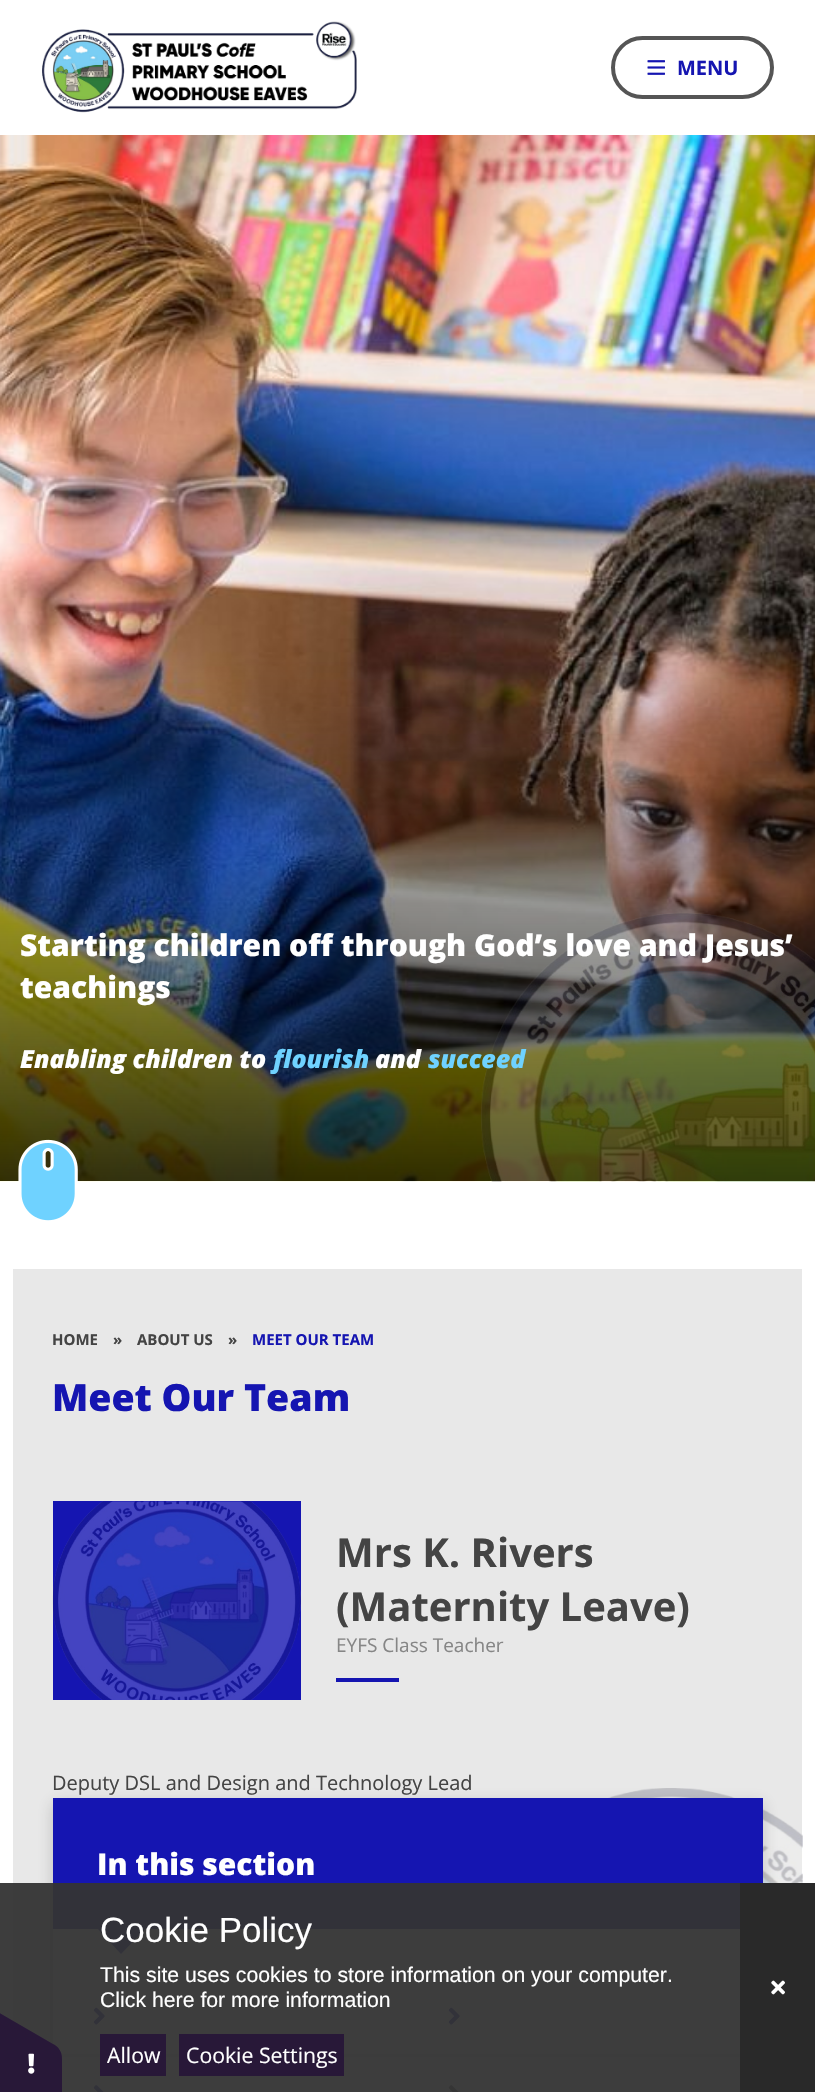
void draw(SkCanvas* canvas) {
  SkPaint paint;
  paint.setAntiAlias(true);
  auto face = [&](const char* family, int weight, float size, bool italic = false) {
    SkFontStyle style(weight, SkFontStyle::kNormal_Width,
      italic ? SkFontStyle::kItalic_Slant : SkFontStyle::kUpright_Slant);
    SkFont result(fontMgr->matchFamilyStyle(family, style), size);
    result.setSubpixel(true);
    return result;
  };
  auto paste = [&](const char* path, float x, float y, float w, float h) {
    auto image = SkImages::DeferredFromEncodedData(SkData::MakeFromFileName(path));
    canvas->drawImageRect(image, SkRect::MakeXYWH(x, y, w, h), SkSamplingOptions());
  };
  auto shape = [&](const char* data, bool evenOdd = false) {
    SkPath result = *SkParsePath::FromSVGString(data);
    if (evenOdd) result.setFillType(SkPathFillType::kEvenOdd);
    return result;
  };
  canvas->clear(0xffffffff);
  paste("img/1.png", 42, 21, 315, 92);
  paint.setStroke(true);
  paint.setStrokeWidth(4);
  paint.setColor(0xff555555);
  canvas->drawRoundRect(SkRect::MakeXYWH(613, 38, 159, 59), 29.5f, 29.5f, paint);
  paste("img/2.png", 647, 60, 18, 15);
  paste("img/3.png", 0, 135, 815, 1047);
  paste("img/4.png", 481, 913, 334, 269);
  paste("img/5.png", 18, 1139, 60, 82);
  paint.setStroke(false);
  paint.setColor(0xffe8e8e8);
  canvas->drawRect(SkRect::MakeXYWH(13, 1269, 789, 775), paint);
  paint.setColor(0xff1515b1);
  canvas->drawRect(SkRect::MakeXYWH(53, 1501, 248, 199), paint);
  paste("img/6.png", 52, 1501, 249, 199);
  canvas->drawRect(SkRect::MakeXYWH(336, 1678, 63, 4), paint);
  paste("img/10.png", 608, 1788, 195, 95);
  paint.setColor(0x331b1b1b);
  paint.setMaskFilter(SkMaskFilter::MakeBlur(kNormal_SkBlurStyle, 7.5f));
  canvas->drawRect(SkRect::MakeXYWH(53, 1803, 710, 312), paint);
  paint.setMaskFilter(nullptr);
  paint.setColor(0xff1515b1);
  canvas->drawRect(SkRect::MakeXYWH(53, 1798, 710, 131), paint);
  paint.setColor(0xffffffff);
  canvas->drawRect(SkRect::MakeXYWH(53, 1929, 687, 163), paint);
  paint.setColor(0xff1515b1);
  canvas->drawPath(shape("M98 1929H145L121 1954Z"), paint);
  paint.setColor(0xffe1e1e1);
  canvas->drawRect(SkRect::MakeXYWH(53, 2054, 687, 3), paint);
  paste("img/7.png", 93, 2007, 12, 18);
  paste("img/7.png", 448, 2007, 12, 18);
  paste("img/8.png", 93, 2085, 11, 7);
  paste("img/9.png", 448, 2085, 11, 7);
  paint.setColor(0xf2333333);
  canvas->drawRect(SkRect::MakeXYWH(0, 1883, 740, 209), paint);
  paint.setColor(0xff281838);
  canvas->drawPath(shape("M62 2059V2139C62 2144 60 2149 57 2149H-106C-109 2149-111 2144-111 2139V2059C-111 2053-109 2049-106 2049H57C60 2049 62 2053 62 2059Z"), paint);
  canvas->drawPath(shape("M-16 2004L53 2044C58 2046 61 2051 60 2053L-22 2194C-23 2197-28 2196-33 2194L-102 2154C-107 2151-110 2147-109 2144L-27 2003C-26 2001-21 2001-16 2004Z"), paint);
  paste("img/11.png", 28, 2053, 7, 21);
  {
    const struct { float x, y, w, h; SkColor color; } items[] = {
      {100, 2034, 66, 42, 0xff281838},
      {179, 2034, 165, 42, 0xff281838},
      {740, 1883, 75, 209, 0xff292929},
    };
    for (auto [x, y, w, h, color] : items) {
      paint.setColor(color);
      canvas->drawRect(SkRect::MakeXYWH(x, y, w, h), paint);
    }
  }
  paste("img/12.png", 771, 1980, 14, 15);
  auto f0 = face("Open Sans", 700, 20);
  paint.setColor(0xff1515b1);
  canvas->drawString("MENU", 677, 75, f0, paint);
  auto f1 = face("Open Sans", 800, 30);
  paint.setColor(0xffffffff);
  canvas->drawString("Starting children off through God’s love and Jesus’", 20, 956, f1, paint);
  canvas->drawString("teachings", 20, 998, f1, paint);
  auto f2 = face("Open Sans", 800, 25, true);
  canvas->drawString("Enabling children to", 20, 1068, f2, paint);
  paint.setColor(0xff6fd2ff);
  canvas->drawString("flourish", 273, 1068, f2, paint);
  paint.setColor(0xffffffff);
  canvas->drawString("and", 375, 1068, f2, paint);
  paint.setColor(0xff6fd2ff);
  canvas->drawString("succeed", 428, 1068, f2, paint);
  auto f3 = face("Open Sans", 700, 15);
  paint.setColor(0xff444444);
  {
    const struct { const char* s; float x, y; } items[] = {
      {"HOME", 52, 1345},
      {"»", 113, 1345},
      {"ABOUT US", 137, 1345},
      {"»", 228, 1345},
    };
    for (auto [s, x, y] : items) {
      canvas->drawString(s, x, y, f3, paint);
    }
  }
  paint.setColor(0xff1515b1);
  canvas->drawString("MEET OUR TEAM", 252, 1345, f3, paint);
  auto f4 = face("Open Sans", 800, 37.5f);
  canvas->drawString("Meet Our Team", 52, 1411, f4, paint);
  auto f5 = face("Open Sans", 700, 40);
  paint.setColor(0xff444444);
  canvas->drawString("Mrs K. Rivers", 336, 1567, f5, paint);
  canvas->drawString("(Maternity Leave)", 336, 1621, f5, paint);
  auto f6 = face("Open Sans", 400, 19);
  paint.setColor(0xff868686);
  canvas->drawString("EYFS Class Teacher", 336, 1652, f6, paint);
  auto f7 = face("Open Sans", 400, 20);
  paint.setColor(0xff444444);
  canvas->drawString("Deputy DSL and Design and Technology Lead", 52, 1790, f7, paint);
  paint.setColor(0xffffffff);
  canvas->drawString("In this section", 97, 1875, f1, paint);
  auto f8 = face("Liberation Sans", 400, 35);
  canvas->drawString("Cookie Policy", 100, 1942, f8, paint);
  auto f9 = face("Liberation Sans", 400, 21.25f);
  canvas->drawString("This site uses cookies to store information on your computer.", 100, 1982, f9, paint);
  canvas->drawString("Click here for more information", 100, 2007, f9, paint);
  auto f10 = face("Open Sans", 400, 21.25f);
  canvas->drawString("Allow", 107, 2063, f10, paint);
  canvas->drawString("Cookie Settings", 186, 2063, f10, paint);
}
